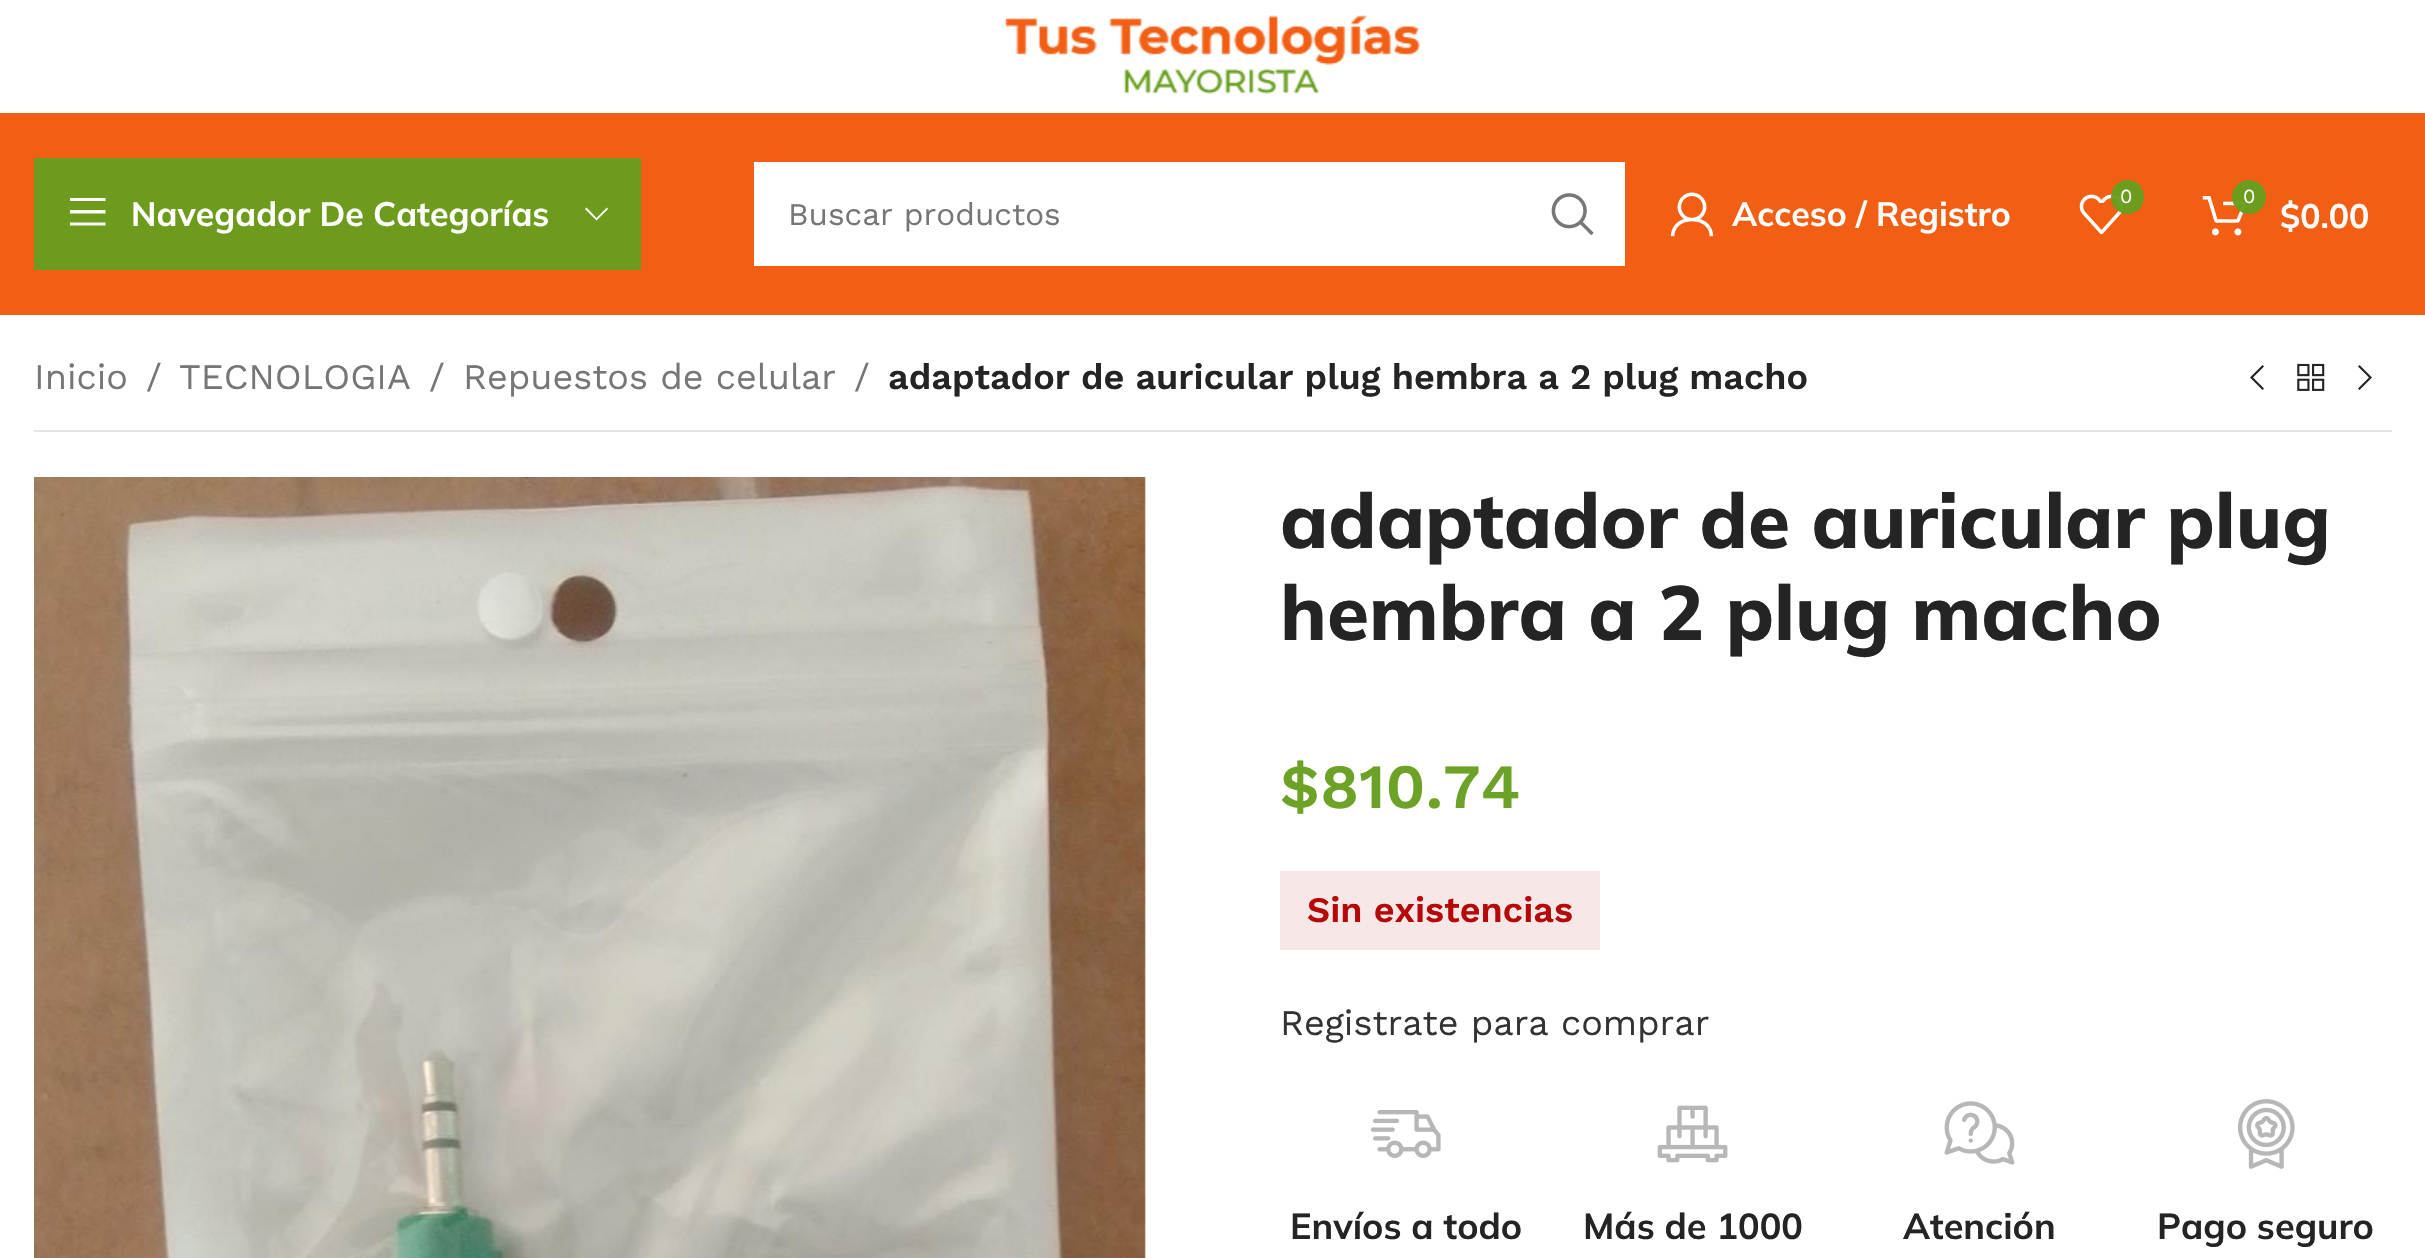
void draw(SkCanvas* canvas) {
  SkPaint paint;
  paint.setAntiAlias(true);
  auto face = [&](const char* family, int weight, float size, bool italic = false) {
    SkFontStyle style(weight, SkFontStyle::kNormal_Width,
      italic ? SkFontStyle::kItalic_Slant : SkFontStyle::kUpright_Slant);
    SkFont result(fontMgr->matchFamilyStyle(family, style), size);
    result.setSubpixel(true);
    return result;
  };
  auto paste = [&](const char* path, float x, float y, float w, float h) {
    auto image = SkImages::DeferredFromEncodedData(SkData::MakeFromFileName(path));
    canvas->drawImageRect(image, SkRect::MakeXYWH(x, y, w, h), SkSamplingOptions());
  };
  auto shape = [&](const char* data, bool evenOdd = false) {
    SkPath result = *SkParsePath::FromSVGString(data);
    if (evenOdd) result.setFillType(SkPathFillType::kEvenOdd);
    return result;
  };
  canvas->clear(0xffffffff);
  paste("img/1.png", 1005, 15, 415, 79);
  paint.setColor(0xfff25e14);
  canvas->drawRect(SkRect::MakeXYWH(0, 113, 2425, 202), paint);
  paint.setColor(0xff6c9b1d);
  canvas->drawRect(SkRect::MakeXYWH(34, 158, 607, 112), paint);
  paint.setColor(0xffffffff);
  canvas->drawPath(shape("M70 201H105.5V198H70ZM70 213.5H105.5V210H70ZM70 225.5H105.5V222.5H70Z"), paint);
  canvas->drawPath(shape("M607 207.5L596.5 218L586.5 207.5L585 209L596.5 220.5L608 209Z"), paint);
  canvas->drawRect(SkRect::MakeXYWH(754, 162, 871, 104), paint);
  paste("img/2.png", 1551, 193, 43, 43);
  paste("img/3.png", 1670, 192, 44, 45);
  paste("img/4.png", 2079, 194, 45, 40);
  paint.setColor(0xf5669e1d);
  canvas->drawRoundRect(SkRect::MakeXYWH(2111, 180, 33, 34), 16.5f, 16.5f, paint);
  paste("img/5.png", 2202, 196, 45, 40);
  canvas->drawCircle(2249, 197, 17, paint);
  paint.setColor(0xffe4e4e4);
  canvas->drawRect(SkRect::MakeXYWH(34, 430, 2358, 2), paint);
  paint.setColor(0xff242424);
  canvas->drawPath(shape("M2264 366.5L2262.5 365L2250 377.5L2262.5 390L2264 388.5L2253 377.5Z"), paint);
  paste("img/6.png", 2297, 363, 28, 28);
  canvas->drawPath(shape("M2358 366.5L2369 377.5L2358 388.5L2359.5 390L2372 377.5L2359.5 365Z"), paint);
  paste("img/7.png", 34, 477, 1112, 781);
  paint.setColor(0xfff8e7e7);
  canvas->drawRect(SkRect::MakeXYWH(1280, 871, 320, 79), paint);
  paste("img/8.png", 1371, 1110, 70, 48);
  paste("img/9.png", 1657, 1105, 71, 58);
  paste("img/10.png", 1944, 1101, 71, 64);
  paste("img/11.png", 2238, 1099, 57, 70);
  auto f0 = face("Mulish", 700, 33.75f);
  paint.setColor(0xffffffff);
  canvas->drawString("Navegador De Categorías", 131, 226, f0, paint);
  auto f1 = face("Work Sans", 400, 31.5f);
  paint.setColor(0xff767676);
  canvas->drawString("Buscar productos", 788, 225, f1, paint);
  paint.setColor(0xffffffff);
  canvas->drawString("Acceso / Registro", 1732, 226, f0, paint);
  auto f2 = face("Work Sans", 400, 20);
  canvas->drawString("0", 2120, 203, f2, paint);
  canvas->drawString("0", 2243, 203, f2, paint);
  canvas->drawString("$0.00", 2280, 228, f0, paint);
  auto f3 = face("Work Sans", 400, 36);
  paint.setColor(0xff767676);
  {
    const struct { const char* s; float x, y; } items[] = {
      {"Inicio", 34, 389},
      {"/", 146, 389},
      {"TECNOLOGIA", 179, 389},
      {"/", 429, 389},
      {"Repuestos de celular", 463, 389},
      {"/", 854, 389},
    };
    for (auto [s, x, y] : items) {
      canvas->drawString(s, x, y, f3, paint);
    }
  }
  auto f4 = face("Work Sans", 600, 36);
  paint.setColor(0xff242424);
  canvas->drawString("adaptador de auricular plug hembra a 2 plug macho", 888, 389, f4, paint);
  auto f5 = face("Mulish", 800, 76.5f);
  canvas->drawString("adaptador de auricular plug", 1280, 548, f5, paint);
  canvas->drawString("hembra a 2 plug macho", 1280, 640, f5, paint);
  auto f6 = face("Work Sans", 600, 63);
  paint.setColor(0xff6ca226);
  canvas->drawString("$810.74", 1280, 808, f6, paint);
  paint.setColor(0xffb50808);
  canvas->drawString("Sin existencias", 1307, 922, f4, paint);
  paint.setColor(0xff333333);
  canvas->drawString("Registrate para comprar", 1280, 1035, f3, paint);
  auto f7 = face("Mulish", 700, 36);
  paint.setColor(0xff242424);
  {
    const struct { const char* s; float x, y; } items[] = {
      {"Envíos a todo", 1290, 1239},
      {"Más de 1000", 1583, 1239},
      {"Atención", 1903, 1239},
      {"Pago seguro", 2157, 1239},
    };
    for (auto [s, x, y] : items) {
      canvas->drawString(s, x, y, f7, paint);
    }
  }
}
